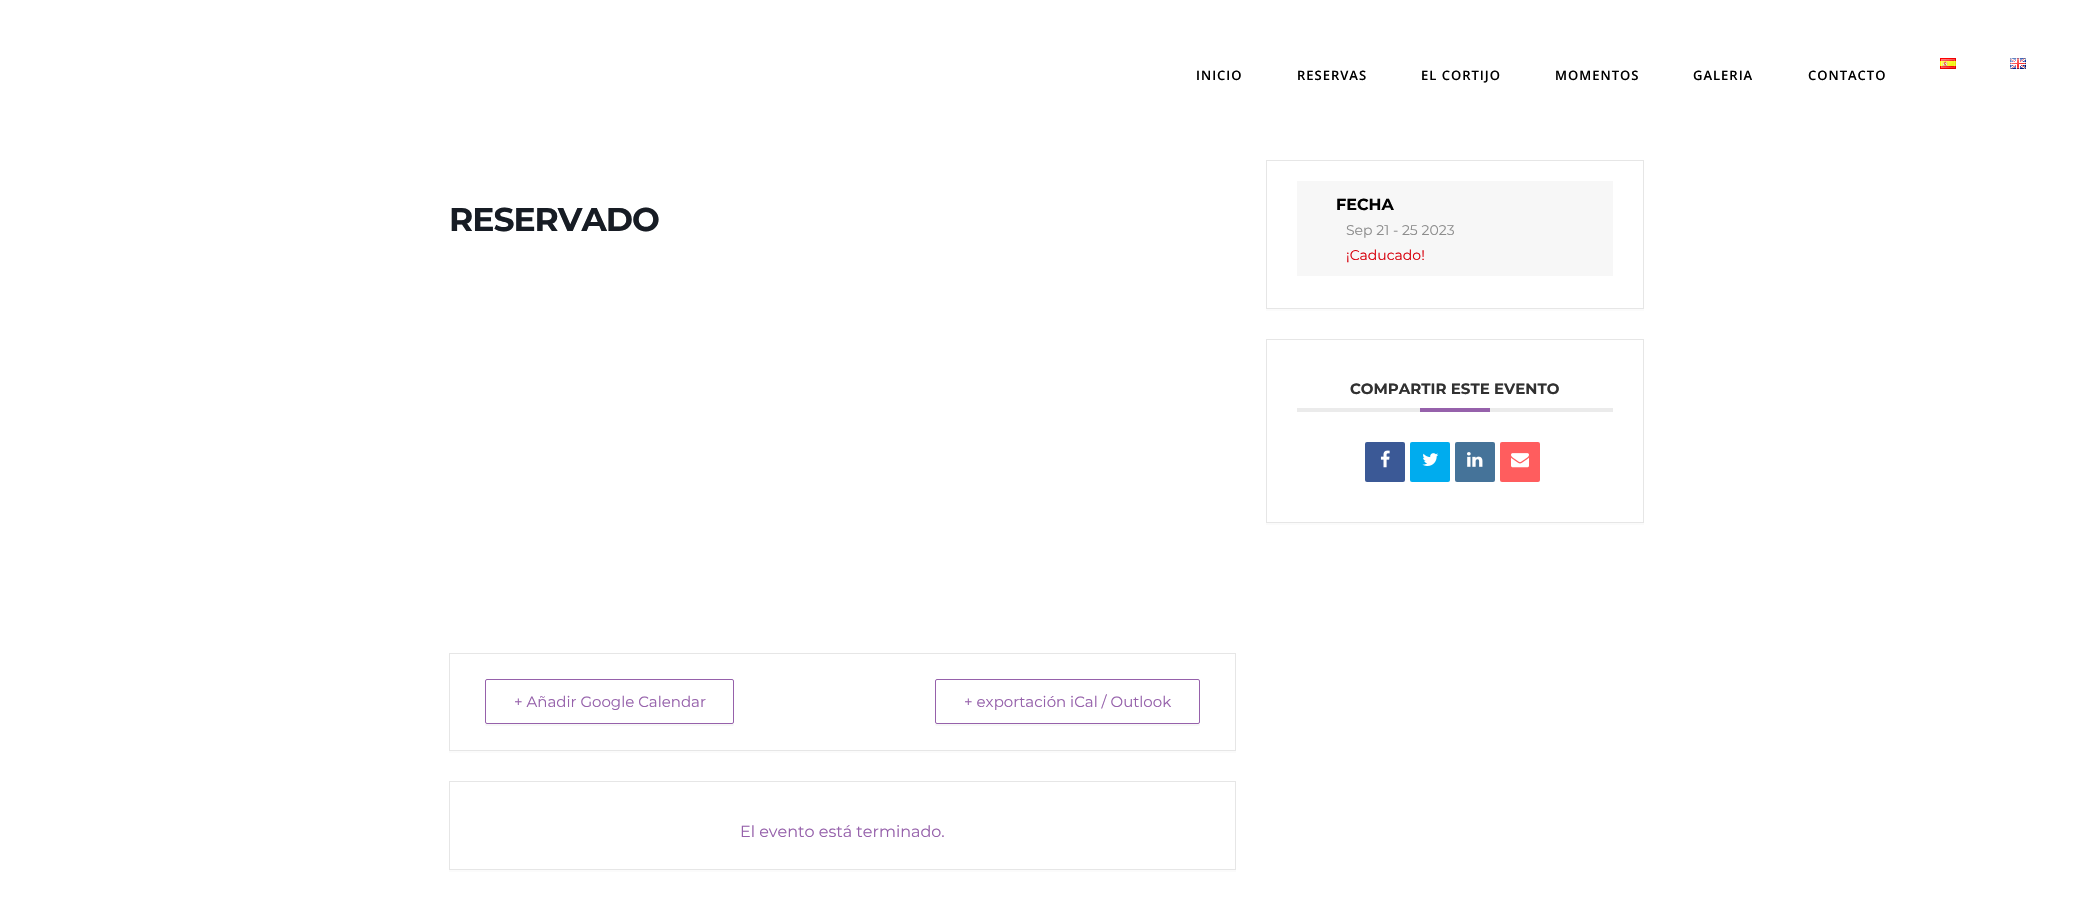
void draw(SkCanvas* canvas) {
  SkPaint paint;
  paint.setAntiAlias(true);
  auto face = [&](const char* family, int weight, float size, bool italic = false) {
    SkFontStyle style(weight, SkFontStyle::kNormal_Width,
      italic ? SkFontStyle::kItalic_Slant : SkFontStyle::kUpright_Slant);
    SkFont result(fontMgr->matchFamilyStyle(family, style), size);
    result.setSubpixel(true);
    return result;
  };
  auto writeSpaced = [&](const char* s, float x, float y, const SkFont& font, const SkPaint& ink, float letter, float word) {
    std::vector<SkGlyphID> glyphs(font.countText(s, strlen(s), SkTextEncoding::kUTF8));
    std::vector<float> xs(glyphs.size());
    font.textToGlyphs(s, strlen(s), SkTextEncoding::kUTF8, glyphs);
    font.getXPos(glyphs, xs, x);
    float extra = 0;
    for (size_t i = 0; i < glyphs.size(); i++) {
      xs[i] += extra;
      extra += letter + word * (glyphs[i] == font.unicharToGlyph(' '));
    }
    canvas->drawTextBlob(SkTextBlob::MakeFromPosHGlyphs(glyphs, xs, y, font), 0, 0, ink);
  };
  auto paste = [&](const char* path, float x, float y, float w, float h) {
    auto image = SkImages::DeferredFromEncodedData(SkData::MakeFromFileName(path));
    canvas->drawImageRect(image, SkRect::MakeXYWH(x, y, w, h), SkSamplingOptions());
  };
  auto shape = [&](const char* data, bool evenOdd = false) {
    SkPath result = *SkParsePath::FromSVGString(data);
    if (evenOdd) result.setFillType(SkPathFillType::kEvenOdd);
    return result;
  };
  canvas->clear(0xffffffff);
  paste("img/1.png", 1940, 58, 16, 11);
  paste("img/2.png", 2010, 58, 16, 11);
  paint.setColor(0xfffbfbfb);
  canvas->drawRect(SkRect::MakeXYWH(449, 751, 787, 2), paint);
  paint.setStroke(true);
  paint.setStrokeWidth(1);
  paint.setColor(0xffe6e6e6);
  canvas->drawRect(SkRect::MakeXYWH(449.5f, 653.5f, 786, 97), paint);
  paint.setStroke(false);
  paint.setColor(0xfff7f7f7);
  canvas->drawPath(shape("M485 722C485 724 485 726 487 726H732C734 726 734 724 734 722C734 723 733 724 732 724H487C486 724 485 723 485 722Z"), paint);
  paint.setStroke(true);
  paint.setColor(0xff9661ab);
  canvas->drawRoundRect(SkRect::MakeXYWH(485.5f, 679.5f, 248, 44), 1.5f, 1.5f, paint);
  paint.setStroke(false);
  paint.setColor(0xfff7f7f7);
  canvas->drawPath(shape("M935 722V724C935 725 936 726 937 726H1198C1199 726 1200 725 1200 724V722C1200 723 1199 724 1198 724H937C936 724 935 723 935 722Z"), paint);
  paint.setStroke(true);
  paint.setColor(0xff9661ab);
  canvas->drawRoundRect(SkRect::MakeXYWH(935.5f, 679.5f, 264, 44), 1.5f, 1.5f, paint);
  paint.setStroke(false);
  paint.setColor(0xfffbfbfb);
  canvas->drawRect(SkRect::MakeXYWH(449, 870, 787, 2), paint);
  paint.setStroke(true);
  paint.setColor(0xffe6e6e6);
  canvas->drawRect(SkRect::MakeXYWH(449.5f, 781.5f, 786, 88), paint);
  paint.setStroke(false);
  paint.setColor(0xfffbfbfb);
  canvas->drawRect(SkRect::MakeXYWH(1266, 309, 378, 2), paint);
  paint.setStroke(true);
  paint.setColor(0xffe6e6e6);
  canvas->drawRect(SkRect::MakeXYWH(1266.5f, 160.5f, 377, 148), paint);
  paint.setStroke(false);
  paint.setColor(0xfff7f7f7);
  canvas->drawRect(SkRect::MakeXYWH(1297, 181, 316, 95), paint);
  paint.setColor(0xfffbfbfb);
  canvas->drawRect(SkRect::MakeXYWH(1266, 523, 378, 2), paint);
  paint.setStroke(true);
  paint.setColor(0xffe6e6e6);
  canvas->drawRect(SkRect::MakeXYWH(1266.5f, 339.5f, 377, 183), paint);
  paint.setStroke(false);
  paint.setColor(0xffebebeb);
  canvas->drawRect(SkRect::MakeXYWH(1297, 408, 316, 4), paint);
  paint.setColor(0xff9661ab);
  canvas->drawRect(SkRect::MakeXYWH(1420, 408, 70, 4), paint);
  paint.setColor(0xff3b5996);
  canvas->drawRoundRect(SkRect::MakeXYWH(1365, 442, 40, 40), 2, 2, paint);
  paste("img/3.png", 1380, 450, 10, 18);
  paint.setColor(0xff00acee);
  canvas->drawRoundRect(SkRect::MakeXYWH(1410, 442, 40, 40), 2, 2, paint);
  paste("img/4.png", 1422, 453, 17, 13);
  paint.setColor(0xff457399);
  canvas->drawRoundRect(SkRect::MakeXYWH(1455, 442, 40, 40), 2, 2, paint);
  paste("img/5.png", 1467, 452, 16, 15);
  paint.setColor(0xffff5d5e);
  canvas->drawRoundRect(SkRect::MakeXYWH(1500, 442, 40, 40), 2, 2, paint);
  paste("img/6.png", 1511, 453, 18, 15);
  auto f0 = face("Open Sans", 600, 13);
  paint.setColor(0xff000000);
  {
    const struct { const char* s; float x, y; } items[] = {
      {"INICIO", 1196, 80},
      {"RESERVAS", 1297, 80},
      {"EL CORTIJO", 1421, 80},
      {"MOMENTOS", 1555, 80},
      {"GALERIA", 1693, 80},
      {"CONTACTO", 1808, 80},
    };
    for (auto [s, x, y] : items) {
      writeSpaced(s, x, y, f0, paint, 1, 0);
    }
  }
  auto f1 = face("Montserrat", 700, 33);
  paint.setColor(0xff171c24);
  writeSpaced("RESERVADO", 449, 231, f1, paint, -1, 0);
  auto f2 = face("Montserrat", 400, 15);
  paint.setColor(0xff9661ab);
  canvas->drawString("+ Añadir Google Calendar", 514, 707, f2, paint);
  canvas->drawString("+ exportación iCal / Outlook", 964, 707, f2, paint);
  auto f3 = face("Montserrat", 400, 16);
  canvas->drawString("El evento está terminado.", 740, 837, f3, paint);
  auto f4 = face("Montserrat", 700, 16);
  paint.setColor(0xff000000);
  canvas->drawString("FECHA", 1336, 210, f4, paint);
  auto f5 = face("Montserrat", 400, 14);
  paint.setColor(0xff8d8d8d);
  canvas->drawString("Sep 21 - 25 2023", 1346, 235, f5, paint);
  paint.setColor(0xffd8000c);
  canvas->drawString("¡Caducado!", 1346, 260, f5, paint);
  auto f6 = face("Montserrat", 700, 15);
  paint.setColor(0xff313131);
  canvas->drawString("COMPARTIR ESTE EVENTO", 1350, 394, f6, paint);
}
